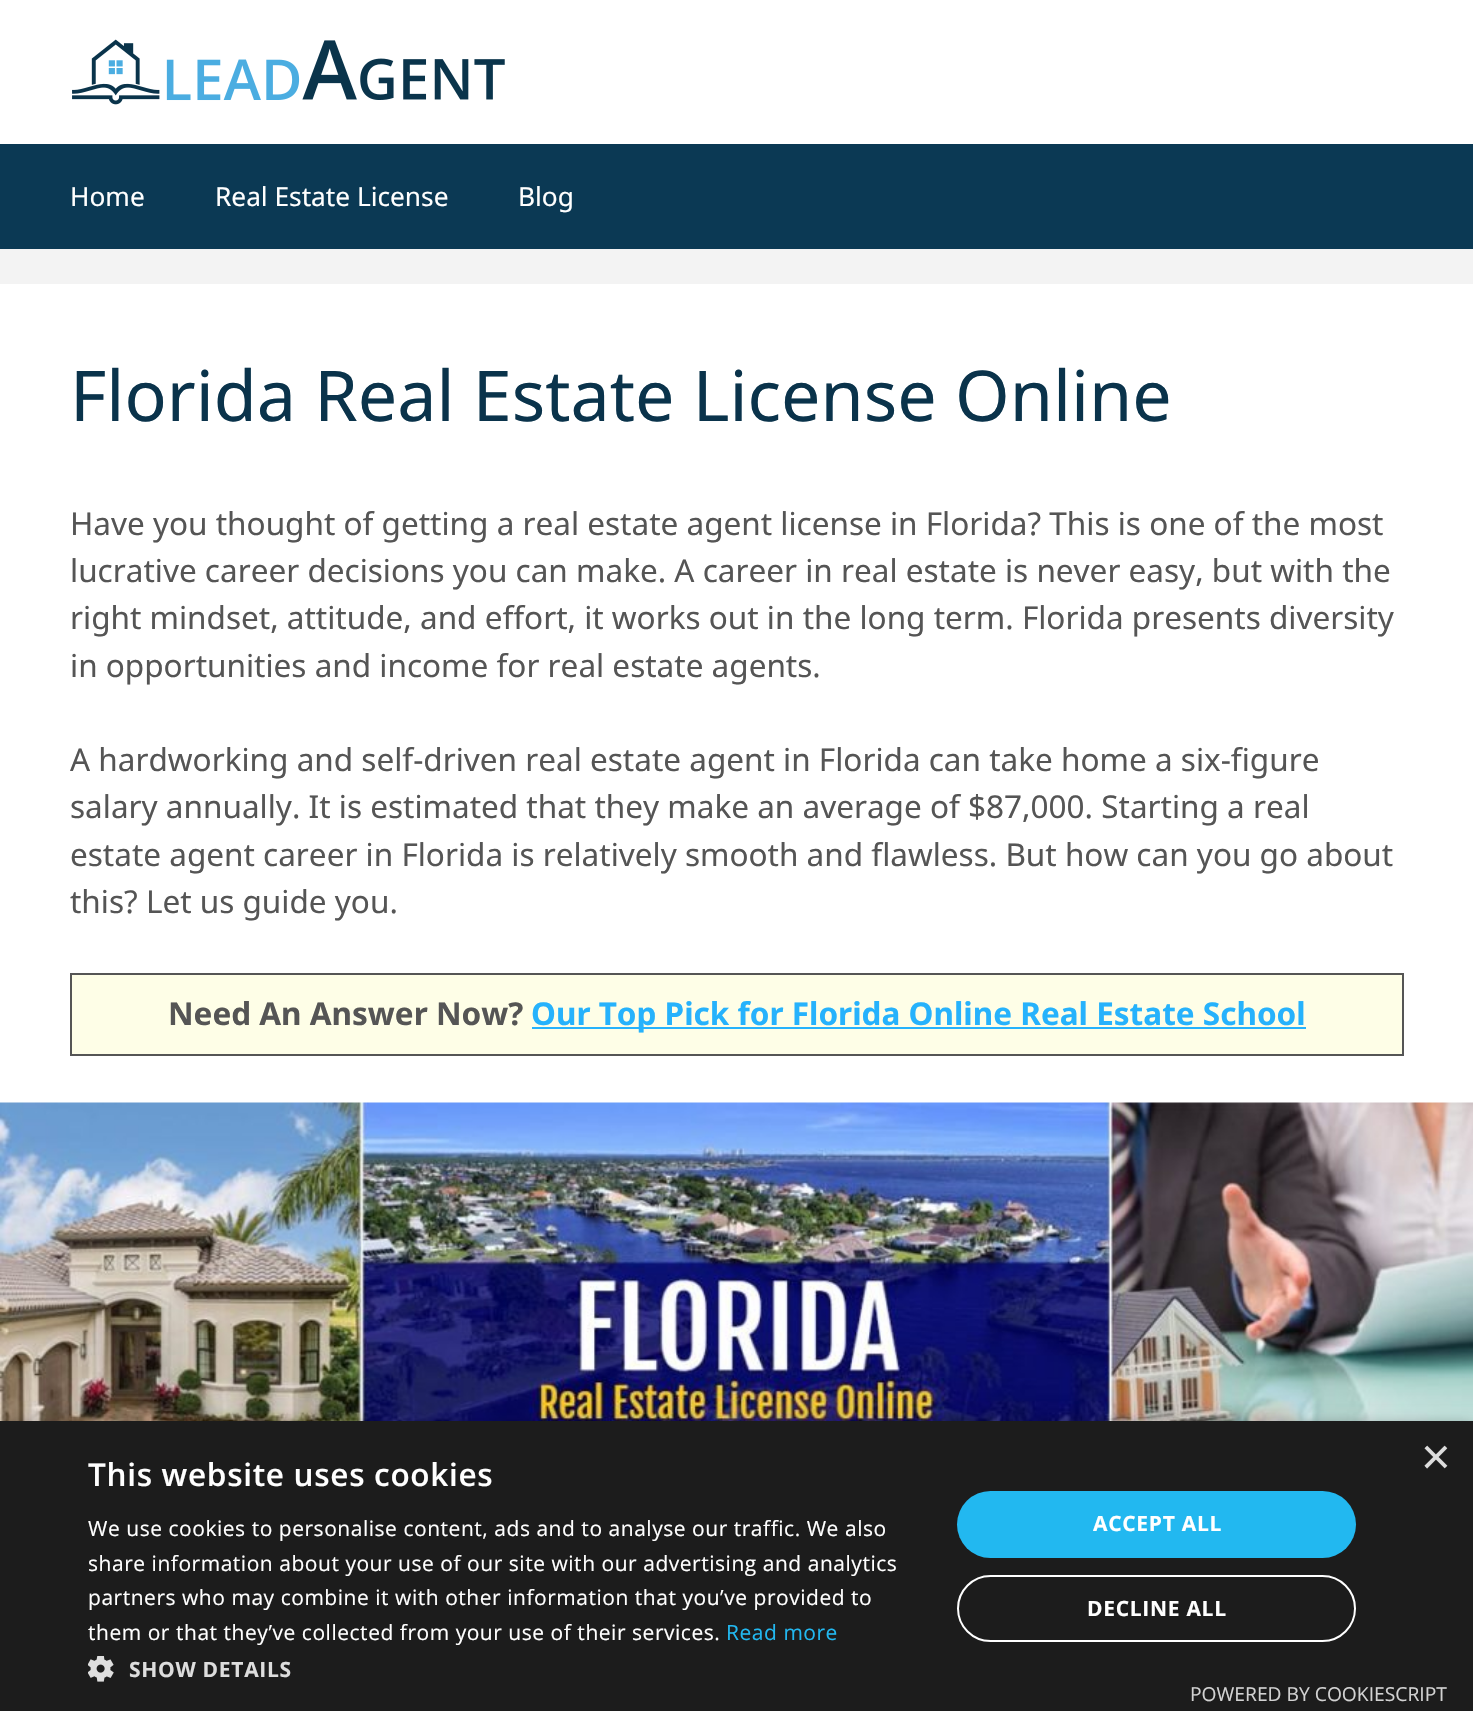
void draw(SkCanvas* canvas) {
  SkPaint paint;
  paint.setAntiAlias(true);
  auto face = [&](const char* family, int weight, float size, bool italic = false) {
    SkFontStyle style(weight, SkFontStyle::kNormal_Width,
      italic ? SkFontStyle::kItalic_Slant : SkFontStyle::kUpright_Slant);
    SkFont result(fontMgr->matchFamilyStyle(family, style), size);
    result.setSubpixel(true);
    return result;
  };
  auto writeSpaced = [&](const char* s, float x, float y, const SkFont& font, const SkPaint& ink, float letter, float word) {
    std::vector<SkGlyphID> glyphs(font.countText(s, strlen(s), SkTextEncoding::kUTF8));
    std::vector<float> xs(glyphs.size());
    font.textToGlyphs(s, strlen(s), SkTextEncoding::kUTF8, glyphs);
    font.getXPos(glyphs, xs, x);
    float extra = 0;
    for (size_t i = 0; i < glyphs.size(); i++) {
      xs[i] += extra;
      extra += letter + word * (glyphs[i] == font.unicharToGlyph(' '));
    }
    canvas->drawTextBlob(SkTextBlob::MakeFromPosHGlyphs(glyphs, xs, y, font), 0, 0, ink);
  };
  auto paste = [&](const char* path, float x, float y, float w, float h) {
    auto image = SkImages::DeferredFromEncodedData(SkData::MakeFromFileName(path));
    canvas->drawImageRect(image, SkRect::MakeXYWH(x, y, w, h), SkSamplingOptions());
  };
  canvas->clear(0xfff3f3f3);
  paint.setColor(0xffffffff);
  canvas->drawRect(SkRect::MakeXYWH(0, 0, 1473, 144), paint);
  paste("img/1.png", 72, 39, 433, 66);
  {
    const struct { float x, y, w, h; SkColor color; } items[] = {
      {0, 144, 1473, 105, 0xff0b3954},
      {0, 284, 1473, 819, 0xffffffff},
      {72, 975, 1330, 79, 0xfffefee7},
      {70, 973, 1334, 2, 0xff555555},
      {1402, 973, 2, 82, 0xff555555},
      {70, 1054, 1334, 2, 0xff555555},
      {70, 973, 2, 82, 0xff555555},
      {532, 1027, 774, 2, 0xff26b2fc},
    };
    for (auto [x, y, w, h, color] : items) {
      paint.setColor(color);
      canvas->drawRect(SkRect::MakeXYWH(x, y, w, h), paint);
    }
  }
  paste("img/2.png", 0, 1102, 1473, 319);
  paint.setColor(0x59000000);
  paint.setMaskFilter(SkMaskFilter::MakeBlur(kNormal_SkBlurStyle, 7));
  canvas->drawRect(SkRect::MakeXYWH(2, 1425, 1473, 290), paint);
  paint.setMaskFilter(nullptr);
  paint.setColor(0xff1c1c1c);
  canvas->drawRect(SkRect::MakeXYWH(0, 1421, 1473, 290), paint);
  paste("img/3.png", 88, 1656, 26, 26);
  paint.setColor(0xff22b8f0);
  canvas->drawRoundRect(SkRect::MakeXYWH(957, 1491, 399, 67), 33.5f, 33.5f, paint);
  paint.setStroke(true);
  paint.setStrokeWidth(2);
  paint.setColor(0xffffffff);
  canvas->drawRoundRect(SkRect::MakeXYWH(958, 1576, 397, 65), 32.5f, 32.5f, paint);
  auto f0 = face("Noto Sans", 400, 26.25f);
  paint.setStroke(false);
  {
    const struct { const char* s; float x, y; } items[] = {
      {"Home", 70, 206},
      {"Real Estate License", 215, 206},
      {"Blog", 518, 206},
    };
    for (auto [s, x, y] : items) {
      canvas->drawString(s, x, y, f0, paint);
    }
  }
  auto f1 = face("Noto Sans", 400, 70);
  paint.setColor(0xff0a334b);
  canvas->drawString("Florida Real Estate License Online", 70, 421, f1, paint);
  auto f2 = face("Noto Sans", 400, 31.5f);
  paint.setColor(0xff555555);
  {
    const struct { const char* s; float x, y; } items[] = {
      {"Have you thought of getting a real estate agent license in Florida? This is one of the most", 70, 535},
      {"lucrative career decisions you can make. A career in real estate is never easy, but with the", 70, 582},
      {"right mindset, attitude, and effort, it works out in the long term. Florida presents diversity", 70, 629},
      {"in opportunities and income for real estate agents.", 70, 677},
      {"A hardworking and self-driven real estate agent in Florida can take home a six-figure", 70, 771},
      {"salary annually. It is estimated that they make an average of $87,000. Starting a real", 70, 818},
      {"estate agent career in Florida is relatively smooth and flawless. But how can you go about", 70, 866},
      {"this? Let us guide you.", 70, 913},
    };
    for (auto [s, x, y] : items) {
      canvas->drawString(s, x, y, f2, paint);
    }
  }
  auto f3 = face("Noto Sans", 700, 31.5f);
  canvas->drawString("Need An Answer Now?", 168, 1025, f3, paint);
  paint.setColor(0xff26b2fc);
  canvas->drawString("Our Top Pick for Florida Online Real Estate School", 531, 1025, f3, paint);
  auto f4 = face("Liberation Sans", 400, 51);
  paint.setColor(0xffdddddd);
  canvas->drawString("×", 1421, 1474, f4, paint);
  auto f5 = face("Open Sans", 600, 31.5f);
  paint.setColor(0xffffffff);
  writeSpaced("This website uses cookies", 88, 1486, f5, paint, 0.7f, 0);
  auto f6 = face("Open Sans", 400, 21);
  {
    const struct { const char* s; float x, y; } items[] = {
      {"We use cookies to personalise content, ads and to analyse our traffic. We also", 88, 1536},
      {"share information about your use of our site with our advertising and analytics", 88, 1571},
      {"partners who may combine it with other information that you’ve provided to", 88, 1605},
      {"them or that they’ve collected from your use of their services.", 88, 1640},
    };
    for (auto [s, x, y] : items) {
      writeSpaced(s, x, y, f6, paint, 0.53f, 0);
    }
  }
  paint.setColor(0xff22b8f0);
  writeSpaced("Read more", 726, 1640, f6, paint, 0.53f, 0);
  auto f7 = face("Open Sans", 700, 21);
  paint.setColor(0xffdddddd);
  writeSpaced("SHOW DETAILS", 129, 1677, f7, paint, 0.7f, 0);
  paint.setColor(0xffffffff);
  writeSpaced("ACCEPT ALL", 1093, 1531, f7, paint, 0.7f, 0);
  writeSpaced("DECLINE ALL", 1087, 1616, f7, paint, 0.7f, 0);
  auto f8 = face("Open Sans", 400, 19.25f);
  paint.setColor(0xffd2d2d2);
  canvas->drawString("POWERED BY COOKIESCRIPT", 1190, 1701, f8, paint);
}
